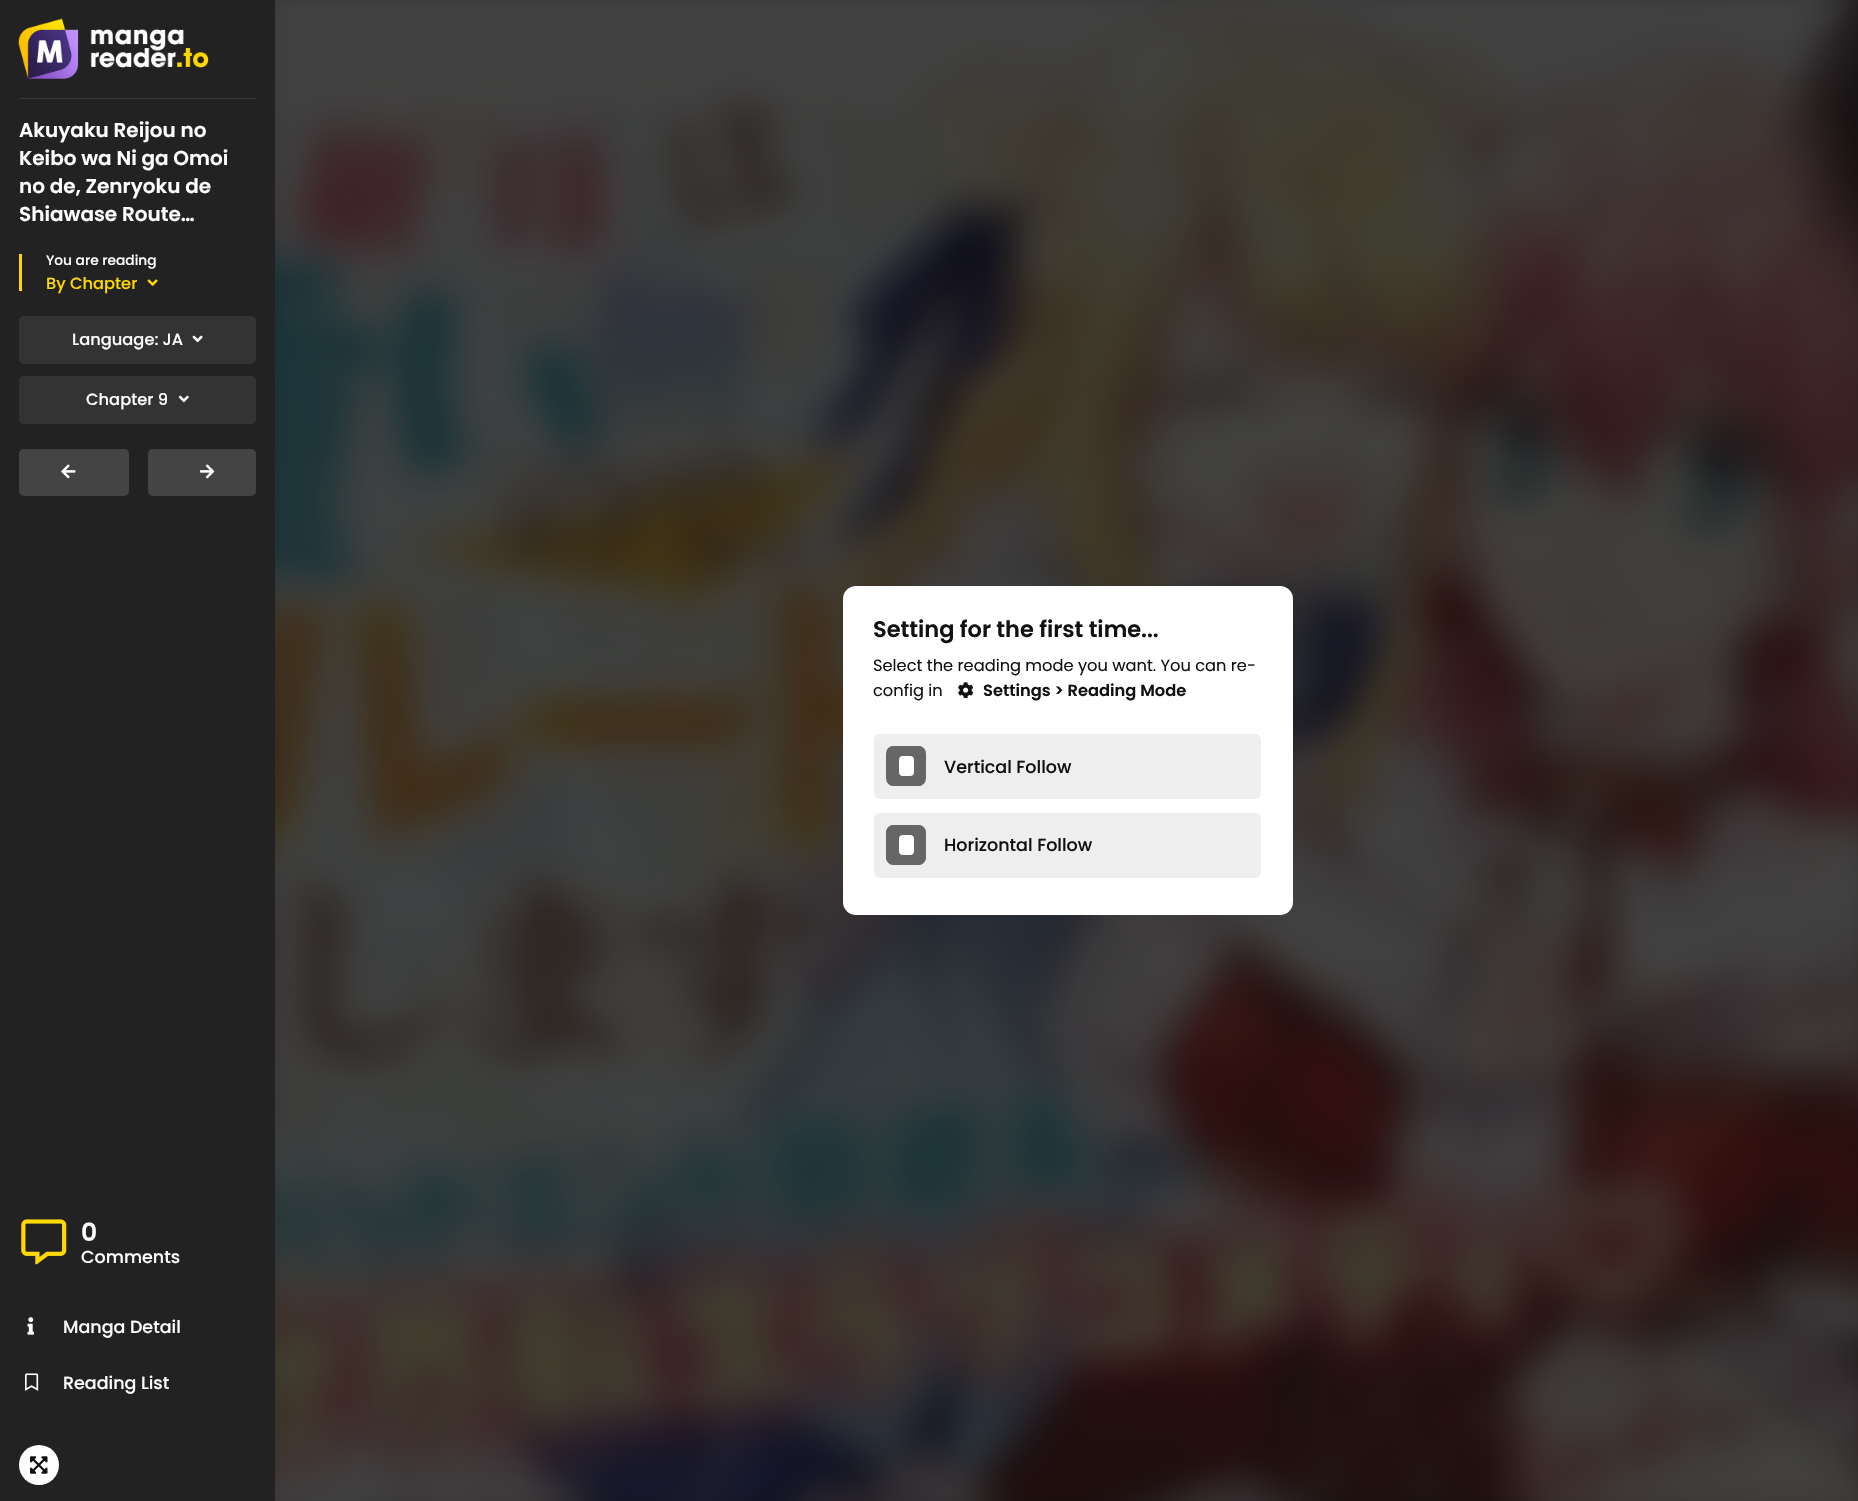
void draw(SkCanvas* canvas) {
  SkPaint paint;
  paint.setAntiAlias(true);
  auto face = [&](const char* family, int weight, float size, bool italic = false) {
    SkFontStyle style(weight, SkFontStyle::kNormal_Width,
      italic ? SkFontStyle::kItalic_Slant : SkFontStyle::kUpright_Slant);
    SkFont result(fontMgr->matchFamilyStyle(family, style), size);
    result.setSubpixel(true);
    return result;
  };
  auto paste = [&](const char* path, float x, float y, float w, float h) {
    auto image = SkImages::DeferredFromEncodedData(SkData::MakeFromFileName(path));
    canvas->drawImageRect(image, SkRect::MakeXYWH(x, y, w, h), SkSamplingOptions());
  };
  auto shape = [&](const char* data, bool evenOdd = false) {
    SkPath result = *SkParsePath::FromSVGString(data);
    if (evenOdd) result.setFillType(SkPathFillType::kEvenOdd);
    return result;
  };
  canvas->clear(0xff111111);
  paint.setColor(0xff222222);
  canvas->drawRect(SkRect::MakeXYWH(0, 0, 275, 1501), paint);
  paste("img/1.png", 18, 18, 191, 61);
  paint.setColor(0xff383838);
  canvas->drawRect(SkRect::MakeXYWH(19, 98, 237, 1), paint);
  paint.setColor(0xffffd702);
  canvas->drawRect(SkRect::MakeXYWH(19, 254, 3, 37), paint);
  paste("img/2.png", 147, 279, 11, 7);
  paint.setColor(0xff333333);
  canvas->drawRoundRect(SkRect::MakeXYWH(19, 316, 237, 48), 5, 5, paint);
  paste("img/3.png", 192, 335, 11, 8);
  canvas->drawRoundRect(SkRect::MakeXYWH(19, 376, 237, 48), 5, 5, paint);
  paste("img/4.png", 178, 395, 11, 8);
  paint.setColor(0xff444444);
  canvas->drawRoundRect(SkRect::MakeXYWH(19, 449, 110, 47), 5, 5, paint);
  paste("img/5.png", 61, 464, 15, 15);
  canvas->drawRoundRect(SkRect::MakeXYWH(148, 449, 108, 47), 5, 5, paint);
  paste("img/6.png", 200, 464, 15, 15);
  paste("img/7.png", 21, 1219, 46, 46);
  paste("img/8.png", 27, 1317, 8, 18);
  paste("img/9.png", 25, 1373, 14, 18);
  paint.setColor(0xffffffff);
  canvas->drawCircle(39, 1465, 20, paint);
  paste("img/10.png", 30, 1456, 18, 18);
  paste("img/11.png", 275, 0, 1583, 1501);
  canvas->drawRoundRect(SkRect::MakeXYWH(843, 586, 450, 329), 13, 13, paint);
  paste("img/12.png", 958, 682, 16, 16);
  paint.setColor(0xffeeeeee);
  canvas->drawRoundRect(SkRect::MakeXYWH(874, 734, 387, 65), 6, 6, paint);
  paint.setColor(0xff666666);
  canvas->drawRoundRect(SkRect::MakeXYWH(886, 746, 40, 40), 8, 8, paint);
  canvas->save();
  canvas->clipPath(shape("M894 746H918C922.5 746 926 749.5 926 754V778C926 782.5 922.5 786 918 786H894C889.5 786 886 782.5 886 778V754C886 749.5 889.5 746 894 746Z"), true);
  canvas->drawRect(SkRect::MakeXYWH(886, 746, 40, 5), paint);
  canvas->restore();
  paint.setColor(0xffffffff);
  canvas->drawRoundRect(SkRect::MakeXYWH(899, 756, 15, 20), 4, 4, paint);
  canvas->save();
  canvas->clipPath(shape("M894 746H918C922.5 746 926 749.5 926 754V778C926 782.5 922.5 786 918 786H894C889.5 786 886 782.5 886 778V754C886 749.5 889.5 746 894 746Z"), true);
  paint.setColor(0xff666666);
  canvas->drawRect(SkRect::MakeXYWH(886, 781, 40, 5), paint);
  canvas->restore();
  paint.setColor(0xffeeeeee);
  canvas->drawRoundRect(SkRect::MakeXYWH(874, 813, 387, 65), 6, 6, paint);
  paint.setColor(0xff666666);
  canvas->drawRoundRect(SkRect::MakeXYWH(886, 825, 40, 40), 8, 8, paint);
  canvas->drawPath(shape("M894 825V865C889.5 865 886 861.5 886 857V833C886 828.5 889.5 825 894 825Z"), paint);
  paint.setColor(0xffffffff);
  canvas->drawRoundRect(SkRect::MakeXYWH(899, 835, 15, 20), 4, 4, paint);
  canvas->save();
  canvas->clipPath(shape("M894 825H918C922.5 825 926 828.5 926 833V857C926 861.5 922.5 865 918 865H894C889.5 865 886 861.5 886 857V833C886 828.5 889.5 825 894 825Z"), true);
  paint.setColor(0xff666666);
  canvas->drawRect(SkRect::MakeXYWH(919, 825, 7, 40), paint);
  canvas->restore();
  auto f0 = face("Poppins", 600, 20);
  paint.setColor(0xffffffff);
  {
    const struct { const char* s; float x, y; } items[] = {
      {"Akuyaku Reijou no", 19, 137},
      {"Keibo wa Ni ga Omoi", 19, 165},
      {"no de, Zenryoku de", 19, 193},
      {"Shiawase Route…", 19, 221},
    };
    for (auto [s, x, y] : items) {
      canvas->drawString(s, x, y, f0, paint);
    }
  }
  auto f1 = face("Poppins", 500, 13.75f);
  canvas->drawString("You are reading", 46, 265, f1, paint);
  auto f2 = face("Poppins", 500, 16.25f);
  paint.setColor(0xffffd702);
  canvas->drawString("By Chapter", 46, 289, f2, paint);
  paint.setColor(0xffffffff);
  canvas->drawString("Language: JA", 72, 345, f2, paint);
  canvas->drawString("Chapter 9", 86, 405, f2, paint);
  auto f3 = face("Poppins", 600, 25);
  canvas->drawString("0", 81, 1241, f3, paint);
  auto f4 = face("Poppins", 500, 17.5f);
  {
    const struct { const char* s; float x, y; } items[] = {
      {"Comments", 81, 1263},
      {"Manga Detail", 63, 1333},
      {"Reading List", 63, 1389},
    };
    for (auto [s, x, y] : items) {
      canvas->drawString(s, x, y, f4, paint);
    }
  }
  auto f5 = face("Poppins", 600, 22.5f);
  paint.setColor(0xff111111);
  canvas->drawString("Setting for the first time...", 873, 637, f5, paint);
  auto f6 = face("Poppins", 400, 16.25f);
  canvas->drawString("Select the reading mode you want. You can re-", 873, 671, f6, paint);
  canvas->drawString("config in", 873, 696, f6, paint);
  auto f7 = face("Poppins", 600, 16.25f);
  canvas->drawString("Settings > Reading Mode", 983, 696, f7, paint);
  canvas->drawString("Vertical Follow", 944, 773, f4, paint);
  canvas->drawString("Horizontal Follow", 944, 851, f4, paint);
}
